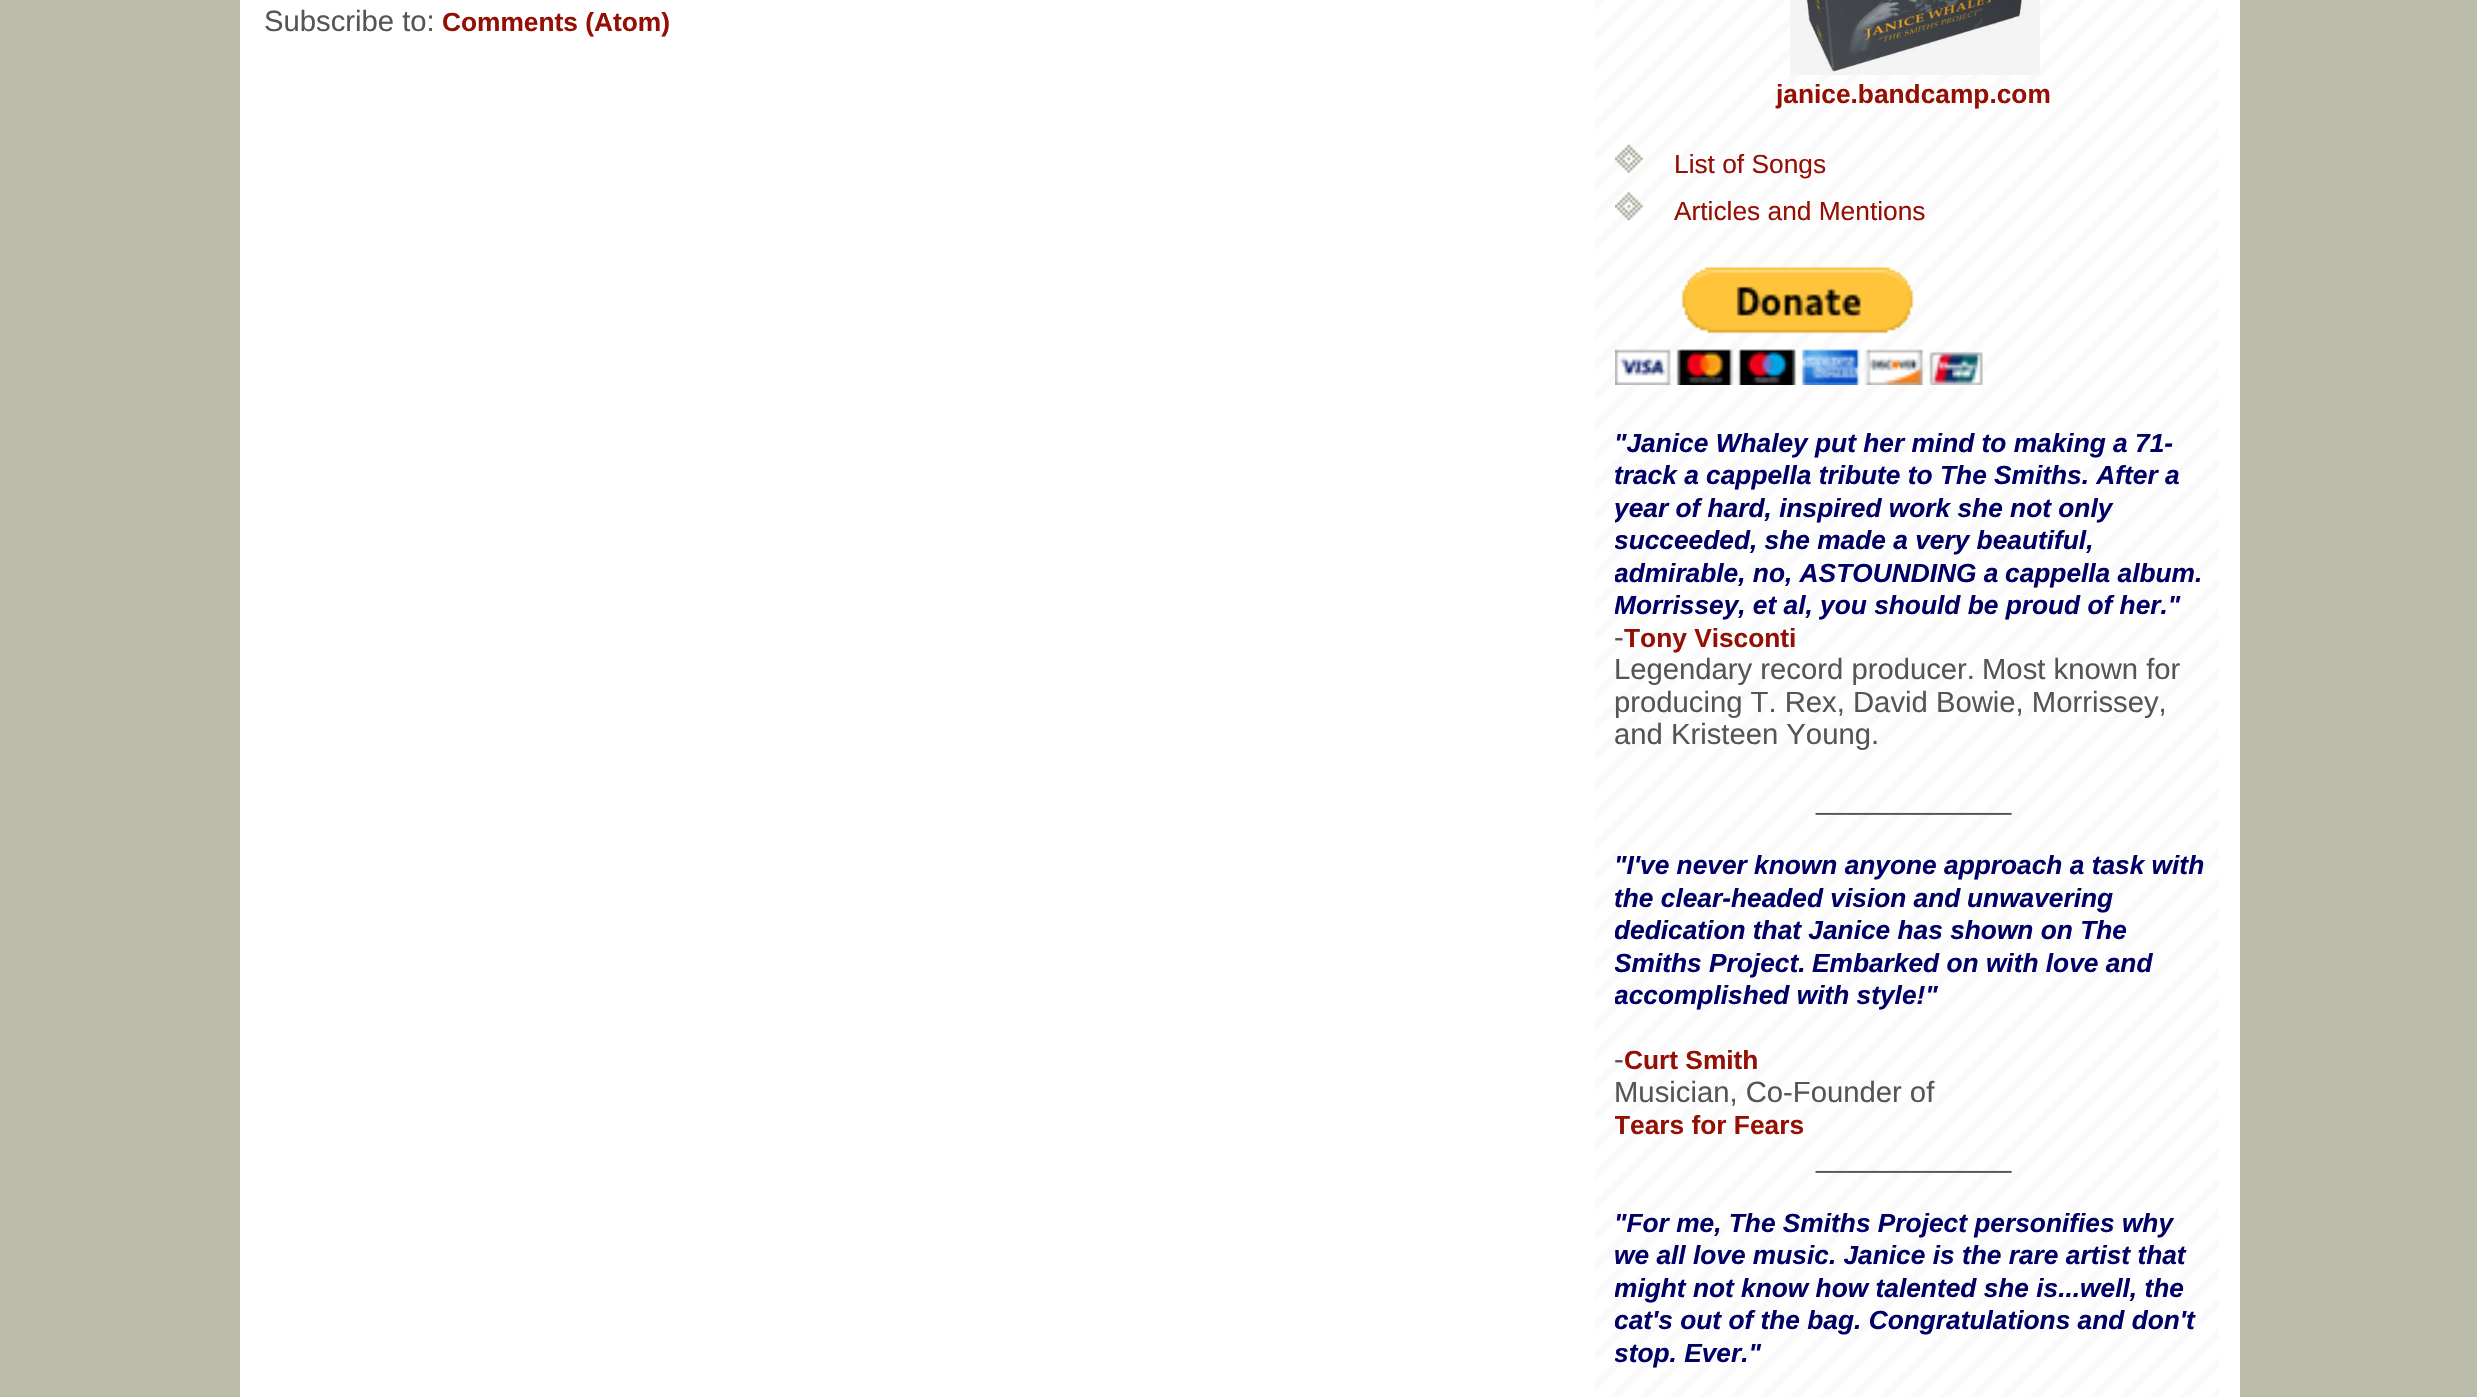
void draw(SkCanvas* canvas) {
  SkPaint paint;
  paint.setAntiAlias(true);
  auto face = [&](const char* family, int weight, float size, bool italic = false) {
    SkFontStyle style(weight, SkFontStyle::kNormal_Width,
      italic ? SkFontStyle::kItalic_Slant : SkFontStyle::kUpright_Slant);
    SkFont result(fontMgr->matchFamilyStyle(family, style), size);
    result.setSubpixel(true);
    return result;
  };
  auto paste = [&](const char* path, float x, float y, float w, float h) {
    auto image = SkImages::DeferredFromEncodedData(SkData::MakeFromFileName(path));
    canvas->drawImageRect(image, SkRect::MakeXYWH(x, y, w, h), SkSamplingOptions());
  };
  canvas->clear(0xffbbbbaa);
  paint.setColor(0xffffffff);
  canvas->drawRect(SkRect::MakeXYWH(240, 0, 2000, 1397), paint);
  paste("img/1.png", 1595, 0, 624, 1397);
  paste("img/2.png", 1790, 0, 250, 75);
  paste("img/3.png", 1615, 144, 29, 29);
  paste("img/4.png", 1615, 191, 29, 29);
  paste("img/5.png", 1615, 267, 368, 118);
  auto f0 = face("Liberation Sans", 400, 29.25f);
  paint.setColor(0xff555555);
  canvas->drawString("Subscribe to:", 264, 31, f0, paint);
  auto f1 = face("Liberation Sans", 700, 26.3f);
  paint.setColor(0xff940f04);
  canvas->drawString("Comments (Atom)", 442, 31, f1, paint);
  canvas->drawString("janice.bandcamp.com", 1776, 103, f1, paint);
  auto f2 = face("Liberation Sans", 400, 26.3f);
  canvas->drawString("List of Songs", 1674, 173, f2, paint);
  canvas->drawString("Articles and Mentions", 1674, 220, f2, paint);
  auto f3 = face("Liberation Sans", 700, 26.3f, true);
  paint.setColor(0xff000066);
  {
    const struct { const char* s; float x, y; } items[] = {
      {"\"Janice Whaley put her mind to making a 71-", 1614, 452},
      {"track a cappella tribute to", 1614, 484},
      {"The Smiths. After a", 1940, 484},
    };
    for (auto [s, x, y] : items) {
      canvas->drawString(s, x, y, f3, paint);
    }
  }
  canvas->save();
  canvas->clipRect(SkRect::MakeXYWH(1615, 0, 600, 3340));
  {
    const struct { const char* s; float x, y; } items[] = {
      {"year of hard, inspired work she not only", 1614, 517},
      {"succeeded, she made a very beautiful,", 1614, 549},
      {"admirable, no, ASTOUNDING a", 1614, 582},
    };
    for (auto [s, x, y] : items) {
      canvas->drawString(s, x, y, f3, paint);
    }
  }
  canvas->restore();
  canvas->drawString("cappella album.", 2005, 582, f3, paint);
  canvas->save();
  canvas->clipRect(SkRect::MakeXYWH(1615, 0, 600, 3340));
  canvas->drawString("Morrissey, et al, you should be proud of her.\"", 1614, 614, f3, paint);
  canvas->restore();
  paint.setColor(0xff555555);
  canvas->drawString("-", 1614, 647, f0, paint);
  paint.setColor(0xff940f04);
  canvas->drawString("Tony Visconti", 1624, 647, f1, paint);
  paint.setColor(0xff555555);
  {
    const struct { const char* s; float x, y; } items[] = {
      {"Legendary record producer.", 1614, 679},
      {"Most known for", 1982, 679},
      {"producing T. Rex, David Bowie, Morrissey,", 1614, 712},
      {"and Kristeen Young.", 1614, 744},
      {"____________", 1816, 809},
    };
    for (auto [s, x, y] : items) {
      canvas->drawString(s, x, y, f0, paint);
    }
  }
  paint.setColor(0xff000066);
  {
    const struct { const char* s; float x, y; } items[] = {
      {"\"I've never known anyone approach a task with", 1614, 874},
      {"the clear-headed vision and", 1614, 907},
      {"unwavering", 1967, 907},
    };
    for (auto [s, x, y] : items) {
      canvas->drawString(s, x, y, f3, paint);
    }
  }
  canvas->save();
  canvas->clipRect(SkRect::MakeXYWH(1615, 0, 600, 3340));
  canvas->drawString("dedication that Janice has shown on The", 1614, 939, f3, paint);
  canvas->drawString("Smiths Project.", 1614, 972, f3, paint);
  canvas->restore();
  canvas->drawString("Embarked on with love and", 1812, 972, f3, paint);
  canvas->save();
  canvas->clipRect(SkRect::MakeXYWH(1615, 0, 600, 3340));
  canvas->drawString("accomplished with style!\"", 1614, 1004, f3, paint);
  canvas->restore();
  paint.setColor(0xff555555);
  canvas->drawString("-", 1614, 1069, f0, paint);
  paint.setColor(0xff940f04);
  canvas->drawString("Curt Smith", 1624, 1069, f1, paint);
  paint.setColor(0xff555555);
  canvas->drawString("Musician, Co-Founder of", 1614, 1102, f0, paint);
  canvas->save();
  canvas->clipRect(SkRect::MakeXYWH(1615, 0, 600, 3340));
  paint.setColor(0xff940f04);
  canvas->drawString("Tears for Fears", 1614, 1134, f1, paint);
  canvas->restore();
  paint.setColor(0xff555555);
  canvas->drawString("____________", 1816, 1167, f0, paint);
  paint.setColor(0xff000066);
  {
    const struct { const char* s; float x, y; } items[] = {
      {"\"For me, The Smiths Project personifies why", 1614, 1232},
      {"we all love music. Janice is", 1614, 1264},
      {"the rare artist that", 1962, 1264},
    };
    for (auto [s, x, y] : items) {
      canvas->drawString(s, x, y, f3, paint);
    }
  }
  canvas->save();
  canvas->clipRect(SkRect::MakeXYWH(1615, 0, 600, 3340));
  {
    const struct { const char* s; float x, y; } items[] = {
      {"might not know how talented she is...well, the", 1614, 1297},
      {"cat's out of the bag. Congratulations and don't", 1614, 1329},
      {"stop. Ever.\"", 1614, 1362},
    };
    for (auto [s, x, y] : items) {
      canvas->drawString(s, x, y, f3, paint);
    }
  }
  canvas->restore();
}
